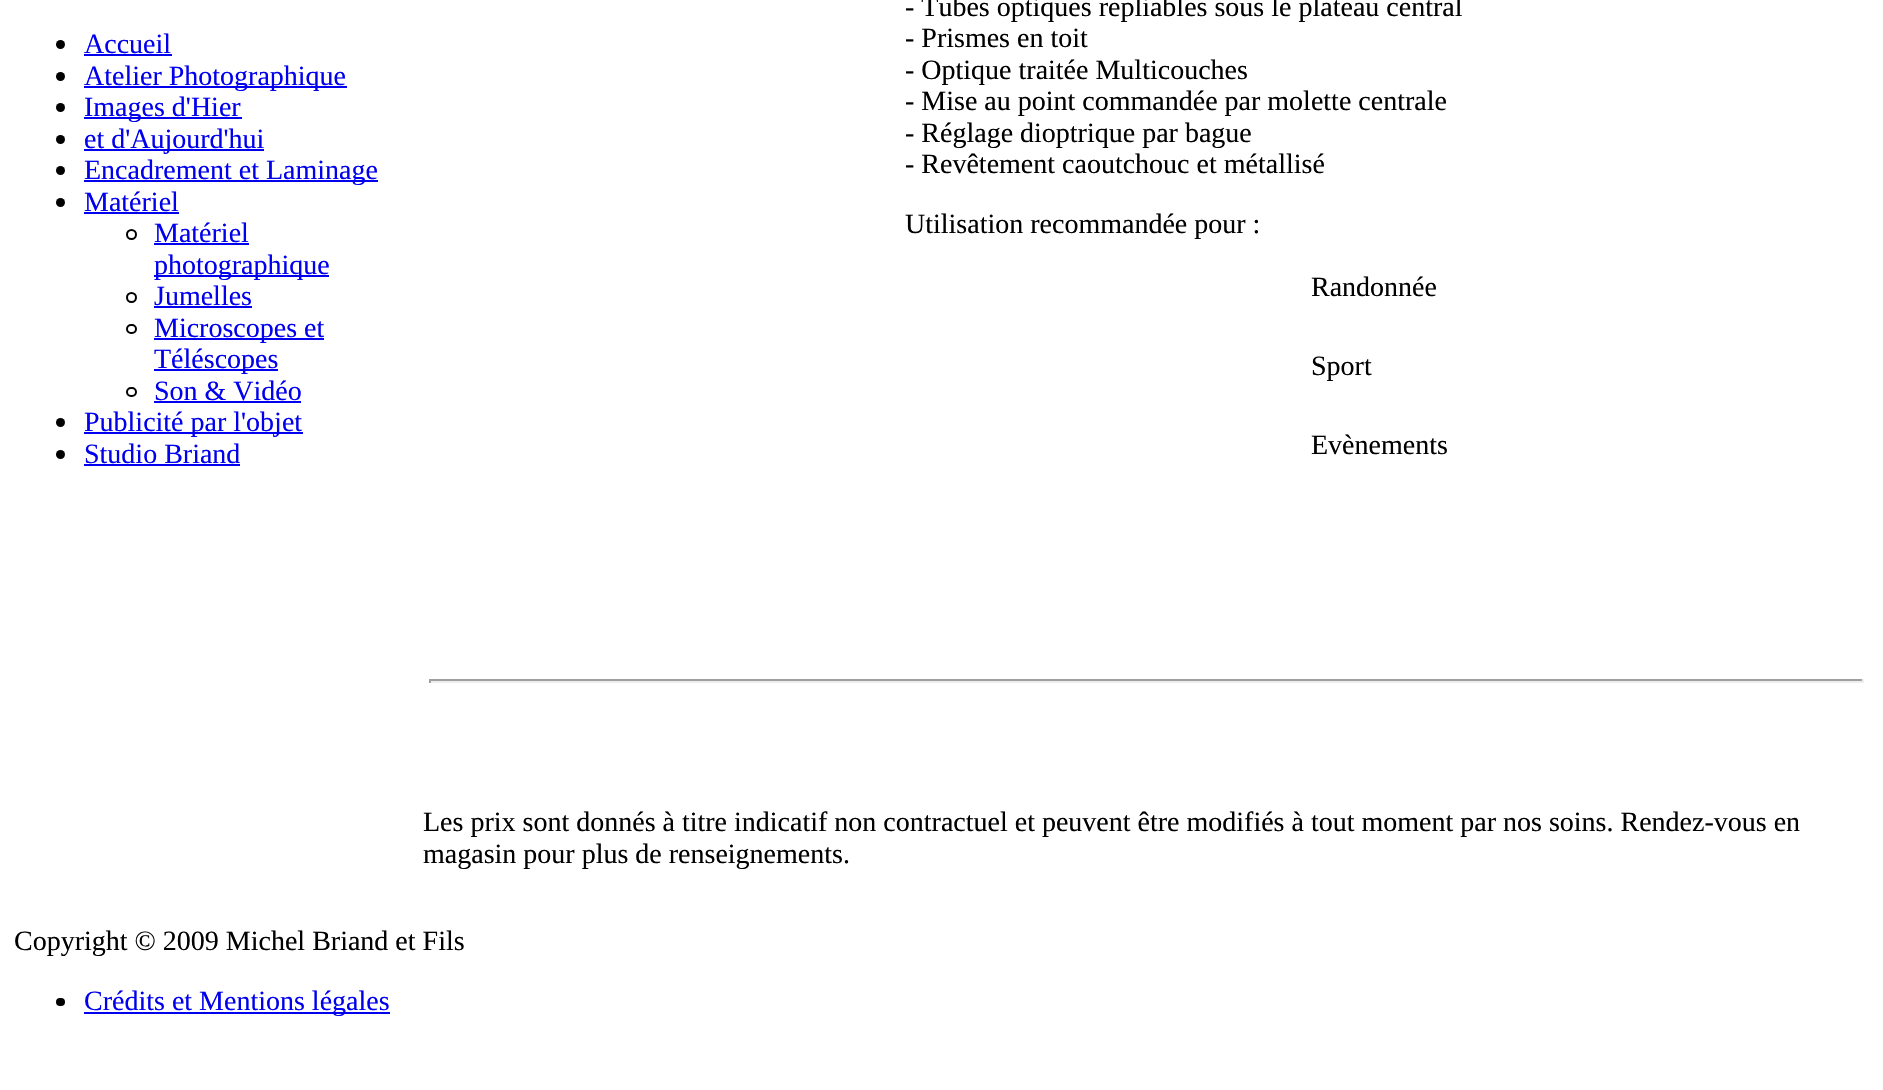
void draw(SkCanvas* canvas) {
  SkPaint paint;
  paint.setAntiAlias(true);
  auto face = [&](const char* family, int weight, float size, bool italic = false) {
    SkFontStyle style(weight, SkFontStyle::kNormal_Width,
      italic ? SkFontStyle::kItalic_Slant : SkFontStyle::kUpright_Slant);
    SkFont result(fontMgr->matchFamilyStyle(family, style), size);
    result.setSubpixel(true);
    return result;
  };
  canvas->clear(0xffffffff);
  paint.setColor(0xff000000);
  canvas->drawCircle(60.5f, 44.5f, 4.5f, paint);
  paint.setColor(0xff0000ee);
  canvas->drawRect(SkRect::MakeXYWH(84, 54, 88, 2), paint);
  paint.setColor(0xff000000);
  canvas->drawCircle(60.5f, 76.5f, 4.5f, paint);
  paint.setColor(0xff0000ee);
  canvas->drawRect(SkRect::MakeXYWH(84, 86, 263, 2), paint);
  paint.setColor(0xff000000);
  canvas->drawCircle(60.5f, 107.5f, 4.5f, paint);
  paint.setColor(0xff0000ee);
  canvas->drawRect(SkRect::MakeXYWH(84, 117, 158, 2), paint);
  paint.setColor(0xff000000);
  canvas->drawCircle(60.5f, 139.5f, 4.5f, paint);
  paint.setColor(0xff0000ee);
  canvas->drawRect(SkRect::MakeXYWH(84, 149, 180, 2), paint);
  paint.setColor(0xff000000);
  canvas->drawCircle(60.5f, 170.5f, 4.5f, paint);
  paint.setColor(0xff0000ee);
  canvas->drawRect(SkRect::MakeXYWH(84, 180, 294, 2), paint);
  paint.setColor(0xff000000);
  canvas->drawCircle(60.5f, 202.5f, 4.5f, paint);
  paint.setColor(0xff0000ee);
  canvas->drawRect(SkRect::MakeXYWH(84, 212, 95, 2), paint);
  paint.setStroke(true);
  paint.setStrokeWidth(2);
  paint.setColor(0xff000000);
  canvas->drawCircle(131.5f, 234.5f, 4.5f, paint);
  paint.setStroke(false);
  paint.setColor(0xff0000ee);
  canvas->drawRect(SkRect::MakeXYWH(154, 243, 95, 2), paint);
  canvas->drawRect(SkRect::MakeXYWH(154, 275, 175, 2), paint);
  paint.setStroke(true);
  paint.setColor(0xff000000);
  canvas->drawCircle(131.5f, 297.5f, 4.5f, paint);
  paint.setStroke(false);
  paint.setColor(0xff0000ee);
  canvas->drawRect(SkRect::MakeXYWH(154, 306, 98, 2), paint);
  paint.setStroke(true);
  paint.setColor(0xff000000);
  canvas->drawRoundRect(SkRect::MakeXYWH(127, 325, 9, 8), 4, 4, paint);
  paint.setStroke(false);
  paint.setColor(0xff0000ee);
  canvas->drawRect(SkRect::MakeXYWH(154, 338, 170, 2), paint);
  canvas->drawRect(SkRect::MakeXYWH(154, 369, 124, 2), paint);
  paint.setStroke(true);
  paint.setColor(0xff000000);
  canvas->drawRoundRect(SkRect::MakeXYWH(127, 388, 9, 8), 4, 4, paint);
  paint.setStroke(false);
  paint.setColor(0xff0000ee);
  canvas->drawRect(SkRect::MakeXYWH(154, 401, 147, 2), paint);
  paint.setColor(0xff000000);
  canvas->drawCircle(60.5f, 422.5f, 4.5f, paint);
  paint.setColor(0xff0000ee);
  canvas->drawRect(SkRect::MakeXYWH(84, 432, 219, 2), paint);
  paint.setColor(0xff000000);
  canvas->drawCircle(60.5f, 454.5f, 4.5f, paint);
  {
    const struct { float x, y, w, h; SkColor color; } items[] = {
      {84, 464, 156, 2, 0xff0000ee},
      {429, 679, 1435, 2, 0xff9f9f9f},
      {1862, 679, 2, 4, 0xffeeeeee},
      {429, 681, 1435, 2, 0xffeeeeee},
      {429, 679, 2, 4, 0xff9f9f9f},
    };
    for (auto [x, y, w, h, color] : items) {
      paint.setColor(color);
      canvas->drawRect(SkRect::MakeXYWH(x, y, w, h), paint);
    }
  }
  paint.setColor(0xff000000);
  canvas->drawRoundRect(SkRect::MakeXYWH(56, 998, 9, 8), 4, 4, paint);
  paint.setColor(0xff0000ee);
  canvas->drawRect(SkRect::MakeXYWH(84, 1012, 306, 2), paint);
  auto f0 = face("Liberation Serif", 400, 28);
  {
    const struct { const char* s; float x, y; } items[] = {
      {"Accueil", 84, 53},
      {"Atelier Photographique", 84, 85},
      {"Images d'Hier", 84, 116},
      {"et d'Aujourd'hui", 84, 148},
      {"Encadrement et Laminage", 84, 179},
      {"Matériel", 84, 211},
      {"Matériel", 154, 242},
      {"photographique", 154, 274},
      {"Jumelles", 154, 305},
      {"Microscopes et", 154, 337},
      {"Téléscopes", 154, 368},
      {"Son & Vidéo", 154, 400},
      {"Publicité par l'objet", 84, 431},
      {"Studio Briand", 84, 463},
    };
    for (auto [s, x, y] : items) {
      canvas->drawString(s, x, y, f0, paint);
    }
  }
  paint.setColor(0xff000000);
  {
    const struct { const char* s; float x, y; } items[] = {
      {"- Tubes optiques repliables sous le plateau central", 905, 16},
      {"- Prismes en toit", 905, 47},
      {"- Optique traitée Multicouches", 905, 79},
      {"- Mise au point commandée par molette centrale", 905, 110},
      {"- Réglage dioptrique par bague", 905, 142},
      {"- Revêtement caoutchouc et métallisé", 905, 173},
      {"Utilisation recommandée pour :", 905, 233},
      {"Randonnée", 1311, 296},
      {"Sport", 1311, 375},
      {"Evènements", 1311, 454},
      {"Les prix sont donnés à titre indicatif non contractuel et peuvent être modifiés à tout moment par nos soins. Rendez-vous en", 423, 831},
      {"magasin pour plus de renseignements.", 423, 863},
      {"Copyright © 2009 Michel Briand et Fils", 14, 950},
    };
    for (auto [s, x, y] : items) {
      canvas->drawString(s, x, y, f0, paint);
    }
  }
  paint.setColor(0xff0000ee);
  canvas->drawString("Crédits et Mentions légales", 84, 1010, f0, paint);
}
